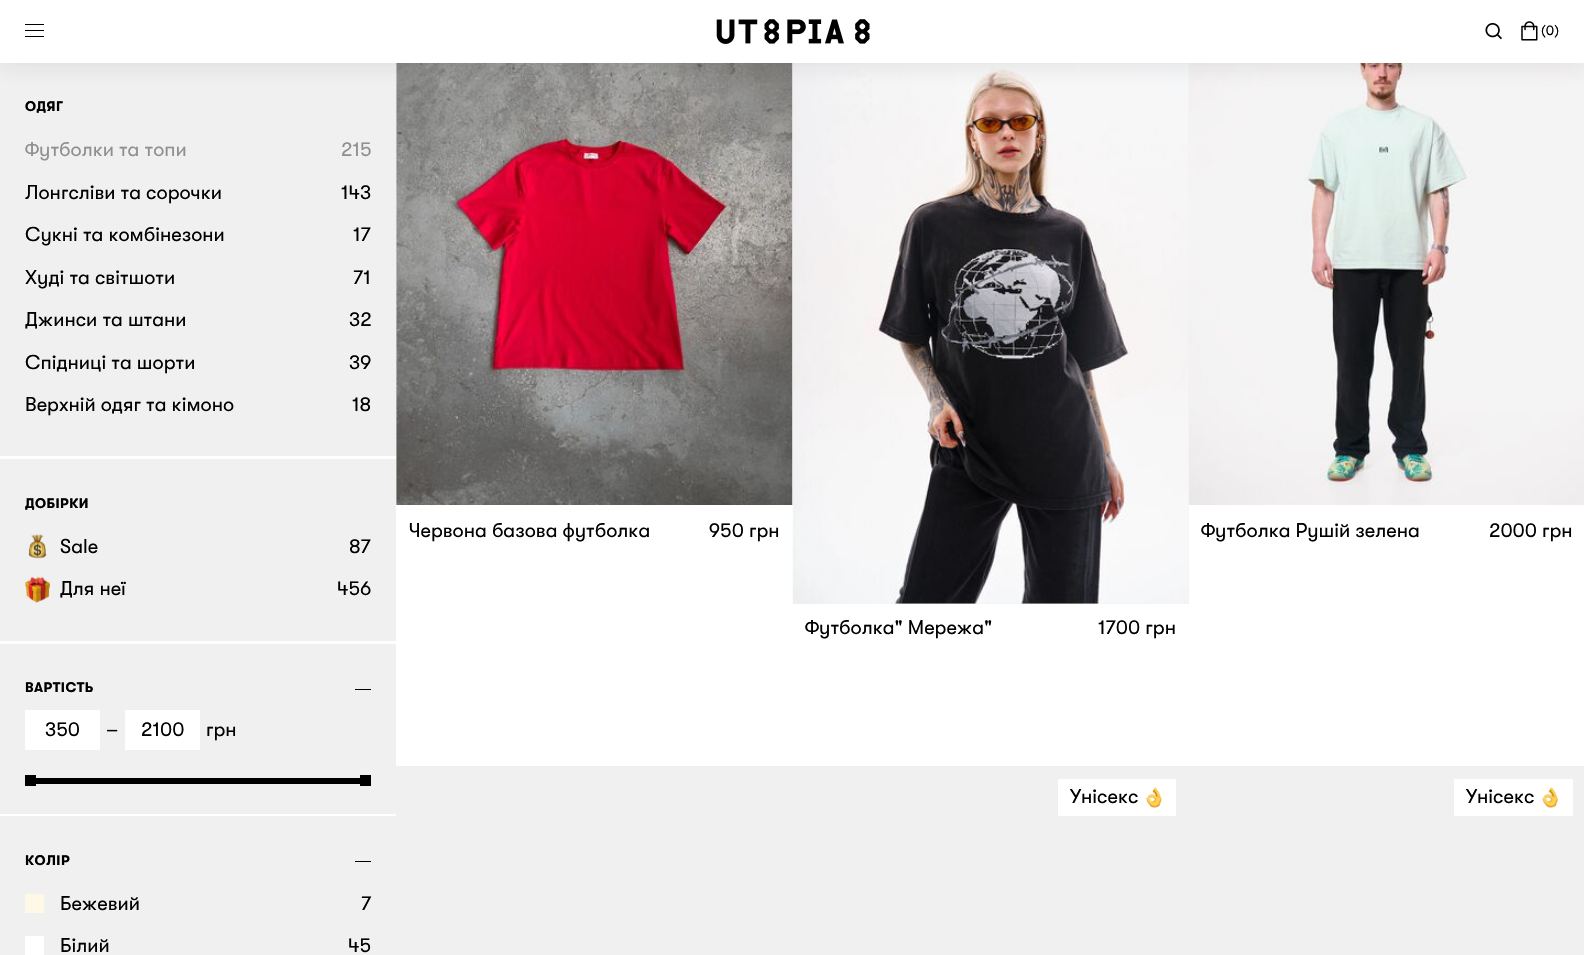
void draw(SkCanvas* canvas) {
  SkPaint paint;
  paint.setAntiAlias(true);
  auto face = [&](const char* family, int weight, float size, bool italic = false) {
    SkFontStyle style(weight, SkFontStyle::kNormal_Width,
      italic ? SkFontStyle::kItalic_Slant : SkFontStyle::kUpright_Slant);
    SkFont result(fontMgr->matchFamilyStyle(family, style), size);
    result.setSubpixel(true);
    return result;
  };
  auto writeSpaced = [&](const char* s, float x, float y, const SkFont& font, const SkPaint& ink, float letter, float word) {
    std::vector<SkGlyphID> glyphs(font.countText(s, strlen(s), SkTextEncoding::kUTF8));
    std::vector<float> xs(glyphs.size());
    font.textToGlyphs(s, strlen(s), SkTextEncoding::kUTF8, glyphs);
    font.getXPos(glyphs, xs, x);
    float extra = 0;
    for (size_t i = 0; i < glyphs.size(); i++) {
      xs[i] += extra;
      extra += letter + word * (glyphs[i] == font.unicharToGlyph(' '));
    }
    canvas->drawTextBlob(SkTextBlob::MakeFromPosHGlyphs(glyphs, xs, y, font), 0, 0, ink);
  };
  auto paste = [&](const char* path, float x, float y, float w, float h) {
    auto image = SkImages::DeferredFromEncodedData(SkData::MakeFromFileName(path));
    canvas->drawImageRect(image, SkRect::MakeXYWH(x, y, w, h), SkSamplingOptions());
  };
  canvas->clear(0xffffffff);
  paint.setColor(0xfff0f0f0);
  canvas->drawRect(SkRect::MakeXYWH(0, 63, 396, 393), paint);
  canvas->drawRect(SkRect::MakeXYWH(396, 63, 397, 442), paint);
  paste("img/6.png", 396, 63, 397, 442);
  paste("img/7.png", 1189, 63, 395, 442);
  canvas->drawRect(SkRect::MakeXYWH(793, 63, 396, 541), paint);
  paste("img/8.png", 792, 63, 397, 541);
  paint.setColor(0x1a212121);
  paint.setMaskFilter(SkMaskFilter::MakeBlur(kNormal_SkBlurStyle, 12.5f));
  canvas->drawRect(SkRect::MakeXYWH(0, 3, 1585, 62), paint);
  paint.setMaskFilter(nullptr);
  {
    const struct { float x, y, w, h; SkColor color; } items[] = {
      {0, 0, 1584, 63, 0xffffffff},
      {25, 24, 19, 1, 0xff000000},
      {25, 30, 19, 1, 0xff000000},
      {25, 36, 19, 1, 0xff000000},
    };
    for (auto [x, y, w, h, color] : items) {
      paint.setColor(color);
      canvas->drawRect(SkRect::MakeXYWH(x, y, w, h), paint);
    }
  }
  paste("img/1.png", 716, 19, 154, 25);
  paste("img/2.png", 1485, 23, 17, 17);
  paste("img/3.png", 1521, 21, 17, 20);
  paint.setColor(0xfff0f0f0);
  canvas->drawRect(SkRect::MakeXYWH(0, 459, 396, 182), paint);
  paste("img/4.png", 28, 534, 19, 25);
  paste("img/5.png", 25, 576, 25, 27);
  {
    const struct { float x, y, w, h; SkColor color; } items[] = {
      {0, 644, 396, 170, 0xfff0f0f0},
      {355, 689, 16, 1, 0xff000000},
      {25, 710, 75, 40, 0xffffffff},
      {125, 710, 75, 40, 0xffffffff},
      {25, 775, 11, 11, 0xff000000},
      {36, 778, 324, 6, 0xff000000},
      {360, 775, 11, 11, 0xff000000},
      {0, 816, 396, 139, 0xfff0f0f0},
      {355, 861, 16, 1, 0xff000000},
      {25, 894, 19, 19, 0xfffff8e7},
      {25, 936, 19, 19, 0xffffffff},
      {396, 766, 1188, 189, 0xfff0f0f0},
      {1058, 779, 118, 37, 0xffffffff},
    };
    for (auto [x, y, w, h, color] : items) {
      paint.setColor(color);
      canvas->drawRect(SkRect::MakeXYWH(x, y, w, h), paint);
    }
  }
  paste("img/9.png", 1146, 787, 16, 21);
  canvas->drawRect(SkRect::MakeXYWH(1454, 779, 119, 37), paint);
  paste("img/10.png", 1542, 787, 17, 21);
  auto f0 = face("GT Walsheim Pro", 400, 13.75f);
  paint.setColor(0xff000000);
  writeSpaced("(0)", 1541, 35, f0, paint, 0.5f, 0);
  auto f1 = face("GT Walsheim Pro", 700, 13.75f);
  writeSpaced("ОДЯГ", 25, 111, f1, paint, 0.5f, 0);
  auto f2 = face("GT Walsheim Pro", 400, 20);
  paint.setColor(0xff909090);
  canvas->drawString("Футболки та топи", 25, 156, f2, paint);
  canvas->drawString("215", 341, 156, f2, paint);
  paint.setColor(0xff000000);
  {
    const struct { const char* s; float x, y; } items[] = {
      {"Лонгсліви та сорочки", 25, 199},
      {"143", 341, 199},
      {"Сукні та комбінезони", 25, 241},
      {"17", 353, 241},
      {"Худі та світшоти", 25, 284},
      {"71", 353, 284},
      {"Джинси та штани", 25, 326},
      {"32", 349, 326},
      {"Спідниці та шорти", 25, 369},
      {"39", 349, 369},
      {"Верхній одяг та кімоно", 25, 411},
      {"18", 352, 411},
    };
    for (auto [s, x, y] : items) {
      canvas->drawString(s, x, y, f2, paint);
    }
  }
  writeSpaced("ДОБІРКИ", 25, 508, f1, paint, 0.5f, 0);
  {
    const struct { const char* s; float x, y; } items[] = {
      {"Sale", 60, 553},
      {"87", 349, 553},
      {"Для неї", 60, 595},
      {"456", 337, 595},
    };
    for (auto [s, x, y] : items) {
      canvas->drawString(s, x, y, f2, paint);
    }
  }
  writeSpaced("ВАРТІСТЬ", 25, 692, f1, paint, 0.5f, 0);
  {
    const struct { const char* s; float x, y; } items[] = {
      {"350", 45, 736},
      {"–", 106, 736},
      {"2100", 141, 736},
      {"грн", 206, 736},
    };
    for (auto [s, x, y] : items) {
      canvas->drawString(s, x, y, f2, paint);
    }
  }
  writeSpaced("КОЛІР", 25, 865, f1, paint, 0.5f, 0);
  {
    const struct { const char* s; float x, y; } items[] = {
      {"Бежевий", 60, 910},
      {"7", 361, 910},
      {"Білий", 60, 952},
      {"45", 348, 952},
      {"Червона базова футболка", 409, 537},
      {"950 грн", 709, 537},
      {"Футболка Рушій зелена", 1201, 537},
      {"2000 грн", 1489, 537},
      {"Футболка\" Мережа\"", 805, 634},
      {"1700 грн", 1098, 634},
      {"Унісекс", 1070, 803},
      {"Унісекс", 1466, 803},
    };
    for (auto [s, x, y] : items) {
      canvas->drawString(s, x, y, f2, paint);
    }
  }
}
